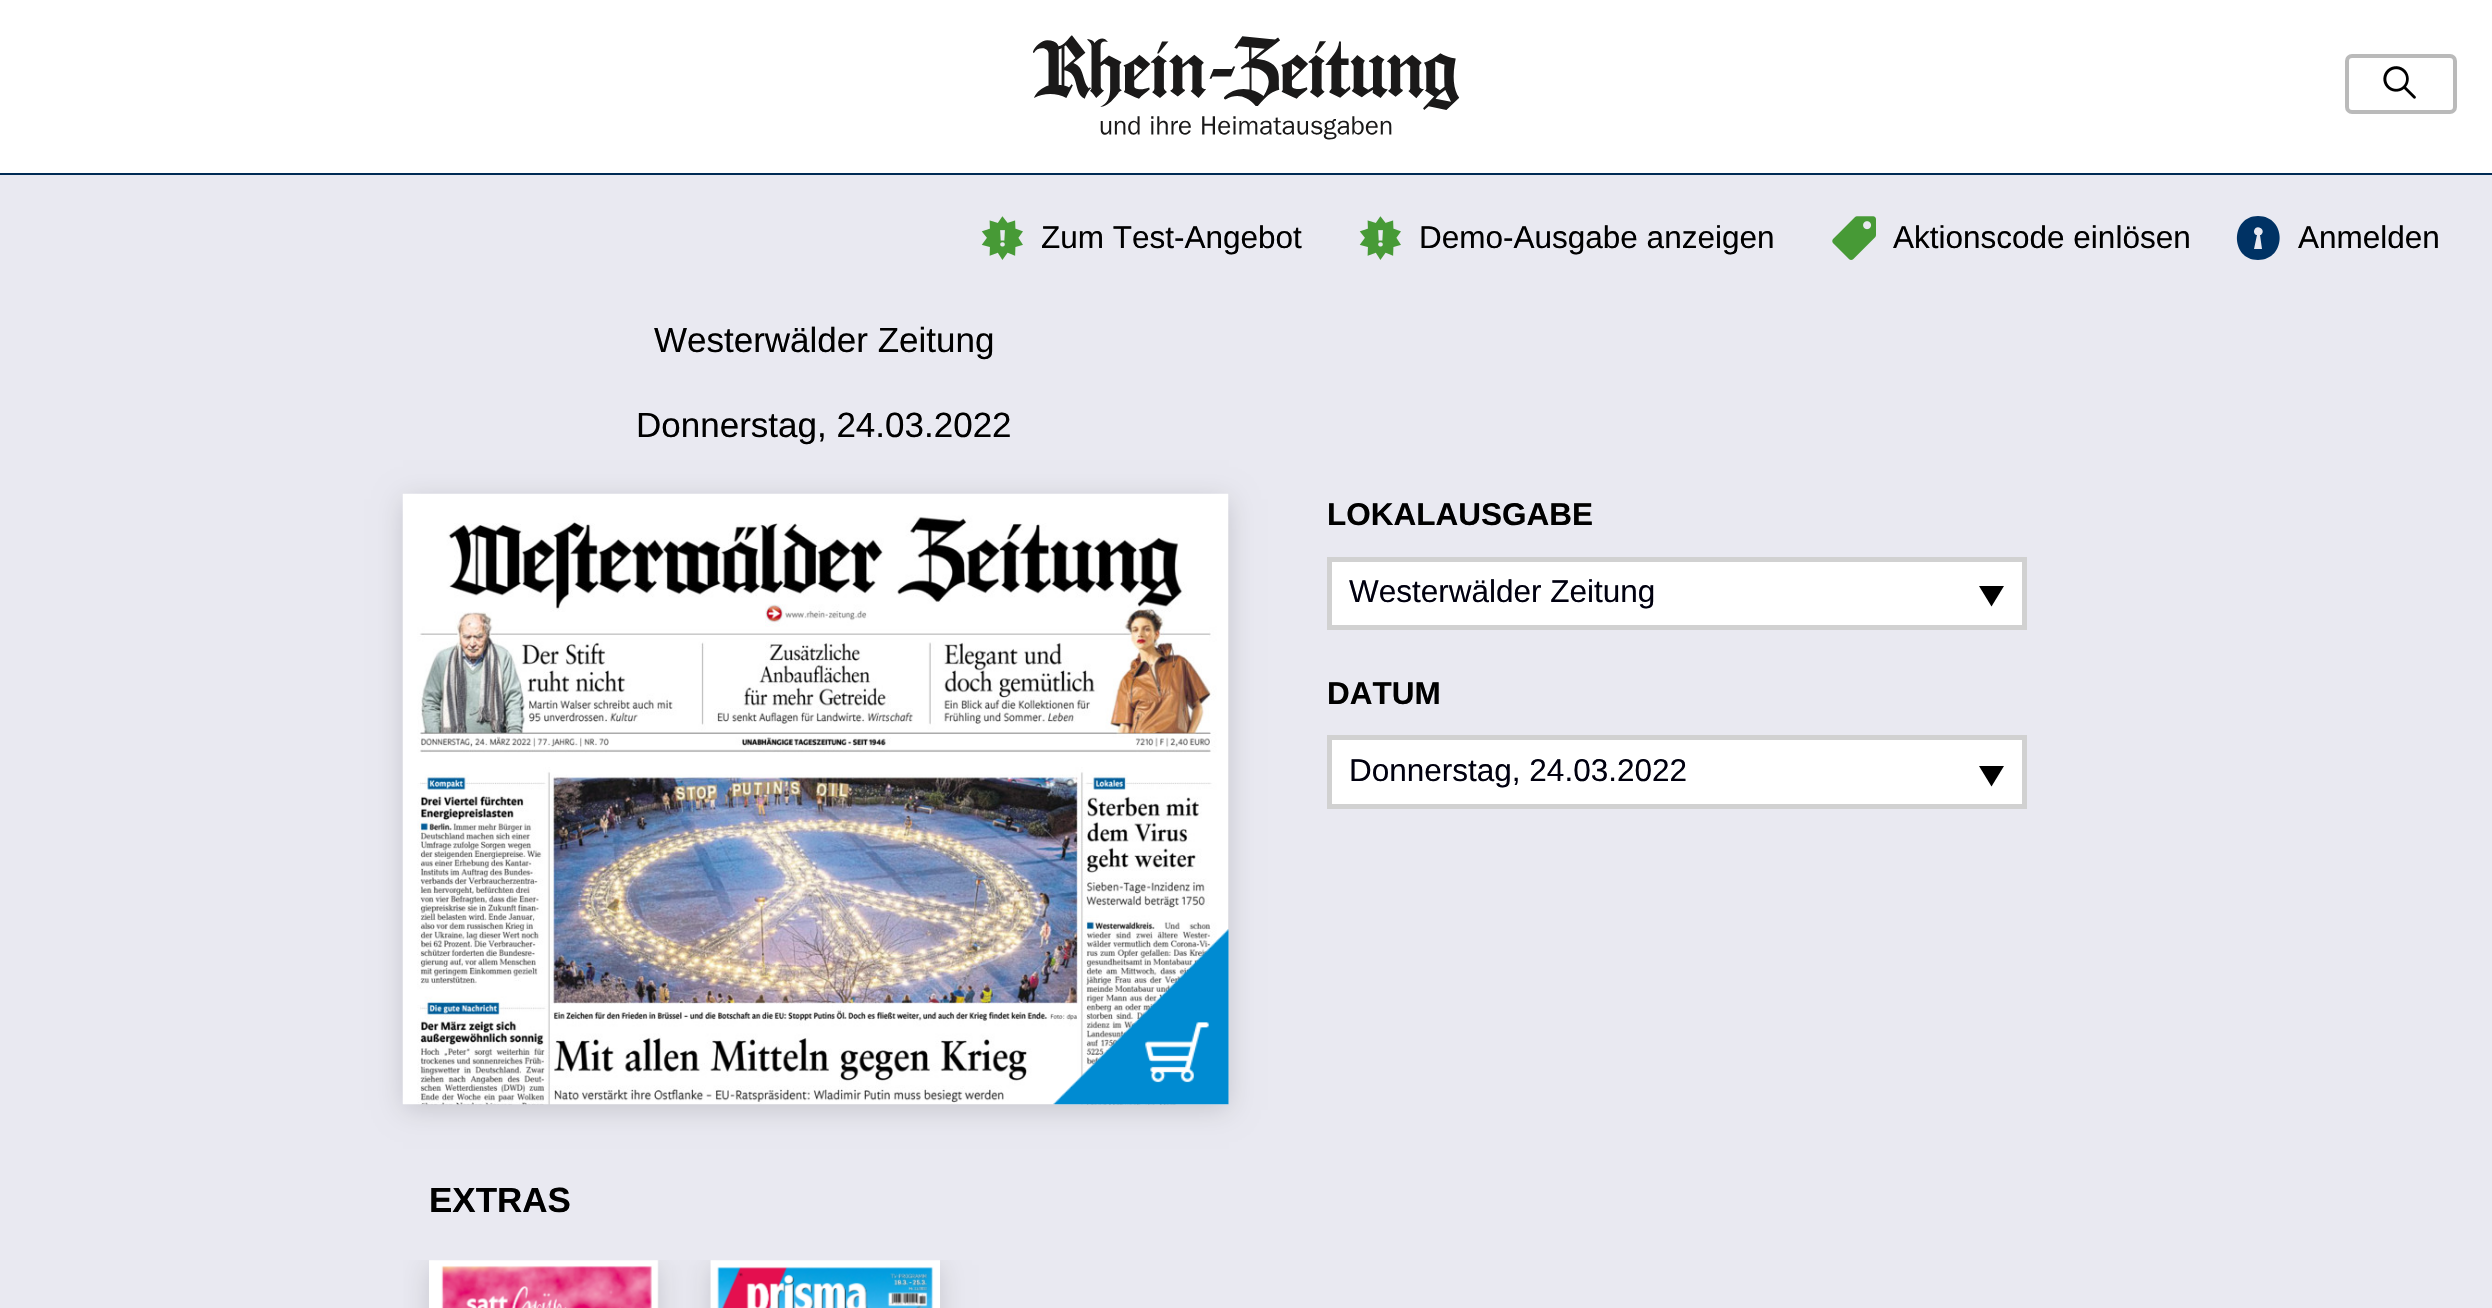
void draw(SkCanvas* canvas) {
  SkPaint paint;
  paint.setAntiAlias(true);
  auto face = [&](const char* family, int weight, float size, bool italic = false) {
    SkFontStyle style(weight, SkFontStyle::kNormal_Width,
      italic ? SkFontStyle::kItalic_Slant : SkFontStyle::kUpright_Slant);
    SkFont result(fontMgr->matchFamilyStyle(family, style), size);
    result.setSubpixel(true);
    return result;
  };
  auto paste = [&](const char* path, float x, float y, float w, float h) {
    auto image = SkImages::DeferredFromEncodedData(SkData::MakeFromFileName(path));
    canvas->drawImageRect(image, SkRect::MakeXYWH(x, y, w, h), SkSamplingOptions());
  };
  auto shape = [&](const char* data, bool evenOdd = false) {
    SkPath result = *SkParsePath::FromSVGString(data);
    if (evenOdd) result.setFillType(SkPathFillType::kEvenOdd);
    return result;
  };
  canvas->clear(0xffe9e9f1);
  paint.setColor(0xffffffff);
  canvas->drawRect(SkRect::MakeXYWH(0, 0, 2492, 173), paint);
  paint.setColor(0xff002b55);
  canvas->drawRect(SkRect::MakeXYWH(0, 173, 2492, 2), paint);
  paste("img/1.png", 1033, 35, 427, 105);
  paint.setStroke(true);
  paint.setStrokeWidth(4);
  paint.setColor(0xffbababa);
  canvas->drawRoundRect(SkRect::MakeXYWH(2347, 56, 108, 56), 5, 5, paint);
  paste("img/2.png", 2383, 66, 33, 33);
  paste("img/3.png", 981, 216, 42, 44);
  paste("img/3.png", 1359, 216, 42, 44);
  paste("img/4.png", 1832, 216, 44, 44);
  paint.setStroke(false);
  paint.setColor(0xff003264);
  canvas->drawPath(shape("M2258 216C2287 216 2287 260 2258 260C2230 260 2230 216 2258 216ZM2261 235C2267 230 2256 223 2254 231C2254 232 2254 234 2256 235H2257L2254 249H2262L2260 235Z"), paint);
  paint.setColor(0x26000000);
  paint.setMaskFilter(SkMaskFilter::MakeBlur(kNormal_SkBlurStyle, 13));
  canvas->drawRect(SkRect::MakeXYWH(403, 499, 826, 611), paint);
  paint.setMaskFilter(nullptr);
  paste("img/5.png", 402, 493, 827, 612);
  paste("img/6.png", 1053, 929, 176, 176);
  paint.setColor(0xffffffff);
  canvas->drawRect(SkRect::MakeXYWH(1329.5f, 559.5f, 695, 68), paint);
  paint.setStroke(true);
  paint.setStrokeWidth(5);
  paint.setColor(0xffd1d1d1);
  canvas->drawRect(SkRect::MakeXYWH(1329.5f, 559.5f, 695, 68), paint);
  paint.setStroke(false);
  paint.setColor(0xff000000);
  canvas->drawPath(shape("M1979 586H2004L1991.5 606.5Z"), paint);
  paint.setColor(0xffffffff);
  canvas->drawRect(SkRect::MakeXYWH(1329.5f, 737.5f, 695, 69), paint);
  paint.setStroke(true);
  paint.setColor(0xffd1d1d1);
  canvas->drawRect(SkRect::MakeXYWH(1329.5f, 737.5f, 695, 69), paint);
  paint.setStroke(false);
  paint.setColor(0xff000000);
  canvas->drawPath(shape("M1979 766H2004L1991.5 786.5Z"), paint);
  canvas->save();
  canvas->clipRect(SkRect::MakeXYWH(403, 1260, 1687, 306));
  paint.setColor(0x26000000);
  paint.setMaskFilter(SkMaskFilter::MakeBlur(kNormal_SkBlurStyle, 13));
  canvas->drawRect(SkRect::MakeXYWH(429, 1265, 229, 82), paint);
  paint.setMaskFilter(nullptr);
  canvas->restore();
  paste("img/7.png", 429, 1260, 230, 48);
  canvas->save();
  canvas->clipRect(SkRect::MakeXYWH(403, 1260, 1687, 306));
  paint.setMaskFilter(SkMaskFilter::MakeBlur(kNormal_SkBlurStyle, 13));
  canvas->drawRect(SkRect::MakeXYWH(711, 1265, 229, 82), paint);
  paint.setMaskFilter(nullptr);
  canvas->restore();
  paste("img/8.png", 710, 1260, 230, 48);
  auto f0 = face("Liberation Sans", 400, 31.5f);
  paint.setColor(0xff000000);
  {
    const struct { const char* s; float x, y; } items[] = {
      {"Zum Test-Angebot", 1041, 248},
      {"Demo-Ausgabe anzeigen", 1419, 248},
      {"Aktionscode einlösen", 1893, 248},
      {"Anmelden", 2298, 248},
    };
    for (auto [s, x, y] : items) {
      canvas->drawString(s, x, y, f0, paint);
    }
  }
  auto f1 = face("Liberation Sans", 400, 35);
  canvas->drawString("Westerwälder Zeitung", 654, 352, f1, paint);
  canvas->drawString("Donnerstag, 24.03.2022", 636, 437, f1, paint);
  auto f2 = face("Liberation Sans", 700, 31.5f);
  canvas->drawString("LOKALAUSGABE", 1327, 525, f2, paint);
  paint.setColor(0xff00000f);
  canvas->drawString("Westerwälder Zeitung", 1349, 602, f0, paint);
  paint.setColor(0xff000000);
  canvas->drawString("DATUM", 1327, 704, f2, paint);
  paint.setColor(0xff00000f);
  canvas->drawString("Donnerstag, 24.03.2022", 1349, 781, f0, paint);
  auto f3 = face("Liberation Sans", 700, 35);
  paint.setColor(0xff000000);
  canvas->drawString("EXTRAS", 429, 1212, f3, paint);
}
